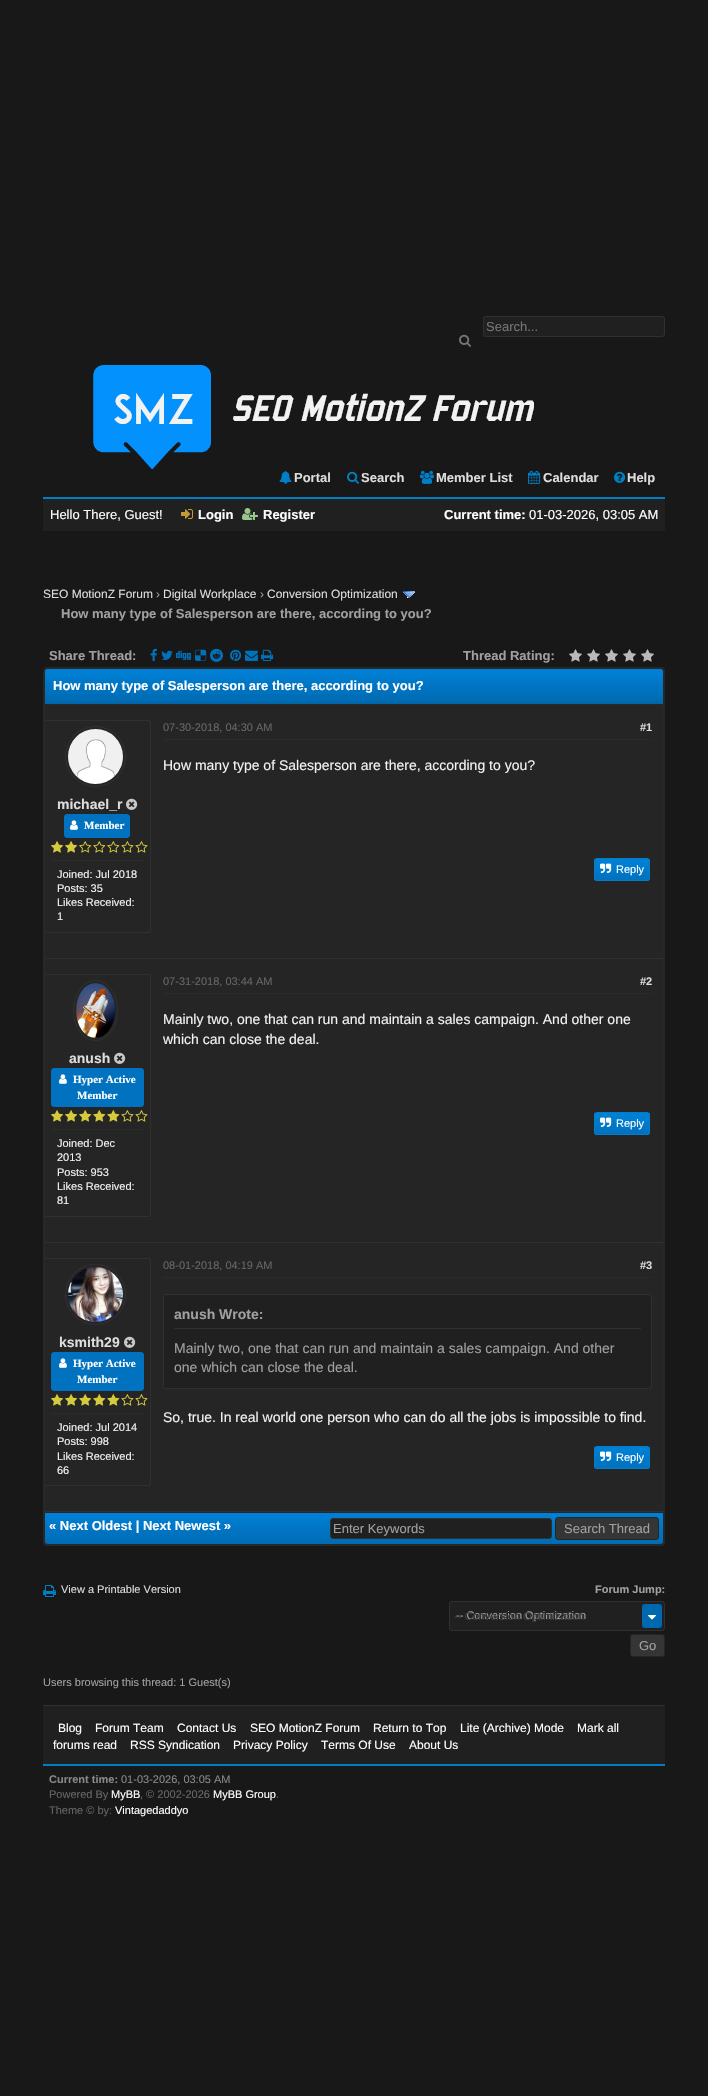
void draw(SkCanvas* canvas) {
  SkPaint paint;
  paint.setAntiAlias(true);
  auto face = [&](const char* family, int weight, float size, bool italic = false) {
    SkFontStyle style(weight, SkFontStyle::kNormal_Width,
      italic ? SkFontStyle::kItalic_Slant : SkFontStyle::kUpright_Slant);
    SkFont result(fontMgr->matchFamilyStyle(family, style), size);
    result.setSubpixel(true);
    return result;
  };
  auto paste = [&](const char* path, float x, float y, float w, float h) {
    auto image = SkImages::DeferredFromEncodedData(SkData::MakeFromFileName(path));
    canvas->drawImageRect(image, SkRect::MakeXYWH(x, y, w, h), SkSamplingOptions());
  };
  auto shape = [&](const char* data, bool evenOdd = false) {
    SkPath result = *SkParsePath::FromSVGString(data);
    if (evenOdd) result.setFillType(SkPathFillType::kEvenOdd);
    return result;
  };
  canvas->clear(0xff181818);
  paint.setColor(0xff202020);
  canvas->drawRoundRect(SkRect::MakeXYWH(483.5f, 316.5f, 181, 20), 2.5f, 2.5f, paint);
  paint.setStroke(true);
  paint.setStrokeWidth(1);
  paint.setColor(0xff303030);
  canvas->drawRoundRect(SkRect::MakeXYWH(483.5f, 316.5f, 181, 20), 2.5f, 2.5f, paint);
  paste("img/1.png", 459, 334, 12, 13);
  paste("img/2.png", 93, 365, 441, 104);
  paste("img/3.png", 279, 470, 13, 14);
  paste("img/4.png", 347, 471, 12, 13);
  paste("img/5.png", 420, 470, 14, 14);
  paste("img/6.png", 528, 470, 13, 14);
  paste("img/7.png", 614, 471, 12, 12);
  paint.setStroke(false);
  paint.setColor(0xff202020);
  canvas->drawRect(SkRect::MakeXYWH(43, 499, 622, 32), paint);
  paint.setColor(0xff007fc6);
  canvas->drawRect(SkRect::MakeXYWH(43, 497, 622, 2), paint);
  paste("img/8.png", 181, 509, 12, 10);
  paste("img/9.png", 242, 508, 16, 12);
  paste("img/10.png", 403, 591, 12, 7);
  paste("img/11.png", 150, 648, 7, 13);
  paste("img/12.png", 161, 650, 12, 10);
  paste("img/13.png", 176, 650, 15, 10);
  paste("img/14.png", 195, 649, 12, 12);
  paste("img/15.png", 210, 648, 13, 14);
  paste("img/16.png", 230, 649, 12, 12);
  paste("img/17.png", 245, 650, 13, 11);
  paste("img/18.png", 261, 649, 13, 12);
  paste("img/19.png", 569, 649, 13, 13);
  paste("img/19.png", 587, 649, 13, 13);
  paste("img/19.png", 605, 649, 13, 13);
  paste("img/19.png", 623, 649, 13, 13);
  paste("img/19.png", 641, 649, 13, 13);
  paint.setColor(0xff282828);
  canvas->drawRoundRect(SkRect::MakeXYWH(43.5f, 667.5f, 621, 878), 3.5f, 3.5f, paint);
  paint.setStroke(true);
  canvas->drawRoundRect(SkRect::MakeXYWH(43.5f, 667.5f, 621, 878), 3.5f, 3.5f, paint);
  paint.setStroke(false);
  paint.setColor(0xff0065a8);
  canvas->drawPath(shape("M48 669H660C661.5 669 663 670.5 663 672V704H45V672C45 670.5 46.5 669 48 669Z"), paint);
  paste("img/20.png", 45, 669, 618, 34);
  paint.setColor(0xff252525);
  canvas->drawRect(SkRect::MakeXYWH(45, 705, 618, 253), paint);
  paint.setColor(0xff303030);
  canvas->drawPath(shape("M45 720H148C150 720 151 721 151 723V930C151 932 150 933 148 933H45ZM45 721H148C149 721 150 722 150 723V930C150 931 149 932 148 932H45Z", true), paint);
  paint.setStroke(true);
  canvas->drawCircle(95.5f, 756.5f, 30, paint);
  paste("img/21.png", 68, 729, 55, 55);
  paste("img/22.png", 126, 798, 12, 12);
  paint.setStroke(false);
  paint.setColor(0xff0072bf);
  canvas->drawRoundRect(SkRect::MakeXYWH(64.5f, 814.5f, 65, 23), 2.5f, 2.5f, paint);
  paint.setStroke(true);
  canvas->drawRoundRect(SkRect::MakeXYWH(64.5f, 814.5f, 65, 23), 2.5f, 2.5f, paint);
  paste("img/23.png", 70, 820, 8, 10);
  paste("img/24.png", 51, 841, 97, 12);
  paint.setColor(0xff303030);
  paint.setPathEffect(SkDashPathEffect::Make({{1, 1}}, 0));
  canvas->drawPath(shape("M51 860.5H144"), paint);
  paint.setPathEffect(nullptr);
  paint.setPathEffect(SkDashPathEffect::Make({{1, 1}}, 0));
  canvas->drawPath(shape("M163 739.5H652"), paint);
  paint.setPathEffect(nullptr);
  paste("img/25.png", 594, 859, 56, 22);
  paint.setColor(0xff007fc6);
  canvas->drawRoundRect(SkRect::MakeXYWH(594.5f, 858.5f, 55, 22), 2.5f, 2.5f, paint);
  paste("img/26.png", 600, 863, 12, 10);
  paint.setStroke(false);
  paint.setColor(0xff303030);
  canvas->drawRect(SkRect::MakeXYWH(45, 958, 618, 1), paint);
  paint.setColor(0xff252525);
  canvas->drawRect(SkRect::MakeXYWH(45, 959, 618, 283), paint);
  paint.setColor(0xff303030);
  canvas->drawPath(shape("M45 974H148C150 974 151 975 151 977V1214C151 1216 150 1217 148 1217H45ZM45 975H148C149 975 150 976 150 977V1214C150 1215 149 1216 148 1216H45Z", true), paint);
  paint.setStroke(true);
  canvas->drawPath(shape("M95.5 980.5C107.5 980.5 117.5 994 117.5 1010.5C117.5 1027 107.5 1040.5 95.5 1040.5C83.5 1040.5 73.5 1027 73.5 1010.5C73.5 994 83.5 980.5 95.5 980.5Z"), paint);
  paste("img/27.png", 76, 983, 39, 55);
  paste("img/22.png", 114, 1052, 12, 12);
  paint.setStroke(false);
  paint.setColor(0xff0072bf);
  canvas->drawRoundRect(SkRect::MakeXYWH(51.5f, 1068.5f, 92, 38), 2.5f, 2.5f, paint);
  paint.setStroke(true);
  canvas->drawRoundRect(SkRect::MakeXYWH(51.5f, 1068.5f, 92, 38), 2.5f, 2.5f, paint);
  paste("img/23.png", 59, 1074, 8, 10);
  paste("img/28.png", 51, 1110, 97, 12);
  paint.setColor(0xff303030);
  paint.setPathEffect(SkDashPathEffect::Make({{1, 1}}, 0));
  canvas->drawPath(shape("M51 1129.5H144"), paint);
  paint.setPathEffect(nullptr);
  paint.setPathEffect(SkDashPathEffect::Make({{1, 1}}, 0));
  canvas->drawPath(shape("M163 993.5H652"), paint);
  paint.setPathEffect(nullptr);
  paste("img/25.png", 594, 1113, 56, 22);
  paint.setColor(0xff007fc6);
  canvas->drawRoundRect(SkRect::MakeXYWH(594.5f, 1112.5f, 55, 22), 2.5f, 2.5f, paint);
  paste("img/26.png", 600, 1117, 12, 10);
  paint.setStroke(false);
  paint.setColor(0xff303030);
  canvas->drawRect(SkRect::MakeXYWH(45, 1242, 618, 1), paint);
  paint.setColor(0xff252525);
  canvas->drawRect(SkRect::MakeXYWH(45, 1243, 618, 268), paint);
  paint.setColor(0xff303030);
  canvas->drawPath(shape("M45 1258H148C150 1258 151 1259 151 1261V1483C151 1485 150 1486 148 1486H45ZM45 1259H148C149 1259 150 1260 150 1261V1483C150 1484 149 1485 148 1485H45Z", true), paint);
  paint.setStroke(true);
  canvas->drawCircle(95.5f, 1294.5f, 30, paint);
  paste("img/29.png", 68, 1267, 55, 55);
  paste("img/22.png", 124, 1336, 12, 12);
  paint.setStroke(false);
  paint.setColor(0xff0072bf);
  canvas->drawRoundRect(SkRect::MakeXYWH(51.5f, 1352.5f, 92, 38), 2.5f, 2.5f, paint);
  paint.setStroke(true);
  canvas->drawRoundRect(SkRect::MakeXYWH(51.5f, 1352.5f, 92, 38), 2.5f, 2.5f, paint);
  paste("img/23.png", 59, 1358, 8, 10);
  paste("img/28.png", 51, 1394, 97, 12);
  paint.setColor(0xff303030);
  paint.setPathEffect(SkDashPathEffect::Make({{1, 1}}, 0));
  canvas->drawPath(shape("M51 1413.5H144"), paint);
  paint.setPathEffect(nullptr);
  paint.setPathEffect(SkDashPathEffect::Make({{1, 1}}, 0));
  canvas->drawPath(shape("M163 1277.5H652"), paint);
  paint.setPathEffect(nullptr);
  paint.setStroke(false);
  paint.setColor(0xff202020);
  canvas->drawRoundRect(SkRect::MakeXYWH(163.5f, 1294.5f, 488, 94), 2.5f, 2.5f, paint);
  paint.setStroke(true);
  paint.setColor(0xff303030);
  canvas->drawRoundRect(SkRect::MakeXYWH(163.5f, 1294.5f, 488, 94), 2.5f, 2.5f, paint);
  paint.setStroke(false);
  canvas->drawRect(SkRect::MakeXYWH(174, 1328, 467, 1), paint);
  paste("img/25.png", 594, 1447, 56, 22);
  paint.setStroke(true);
  paint.setColor(0xff007fc6);
  canvas->drawRoundRect(SkRect::MakeXYWH(594.5f, 1446.5f, 55, 22), 2.5f, 2.5f, paint);
  paste("img/26.png", 600, 1451, 12, 10);
  paint.setStroke(false);
  paint.setColor(0xff303030);
  canvas->drawRect(SkRect::MakeXYWH(45, 1511, 618, 1), paint);
  paste("img/30.png", 45, 1513, 618, 31);
  paint.setColor(0xff202020);
  canvas->drawRoundRect(SkRect::MakeXYWH(330.5f, 1518.5f, 221, 20), 2.5f, 2.5f, paint);
  paint.setStroke(true);
  paint.setColor(0xff303030);
  canvas->drawRoundRect(SkRect::MakeXYWH(330.5f, 1518.5f, 221, 20), 2.5f, 2.5f, paint);
  paint.setStroke(false);
  paint.setColor(0xff353535);
  canvas->drawRoundRect(SkRect::MakeXYWH(555.5f, 1517.5f, 103, 22), 2.5f, 2.5f, paint);
  paint.setStroke(true);
  paint.setColor(0xff252525);
  canvas->drawRoundRect(SkRect::MakeXYWH(555.5f, 1517.5f, 103, 22), 2.5f, 2.5f, paint);
  paste("img/31.png", 43, 1585, 13, 12);
  paint.setStroke(false);
  paint.setColor(0xff202020);
  canvas->drawRoundRect(SkRect::MakeXYWH(449.5f, 1601.5f, 215, 29), 2.5f, 2.5f, paint);
  paint.setStroke(true);
  paint.setColor(0xff303030);
  canvas->drawRoundRect(SkRect::MakeXYWH(449.5f, 1601.5f, 215, 29), 2.5f, 2.5f, paint);
  paint.setStroke(false);
  paint.setColor(0xff0068af);
  canvas->drawRoundRect(SkRect::MakeXYWH(642, 1604, 20, 24), 3, 3, paint);
  paste("img/32.png", 648, 1615, 8, 5);
  paint.setColor(0xff353535);
  canvas->drawRoundRect(SkRect::MakeXYWH(630.5f, 1634.5f, 34, 22), 2.5f, 2.5f, paint);
  paint.setStroke(true);
  paint.setColor(0xff252525);
  canvas->drawRoundRect(SkRect::MakeXYWH(630.5f, 1634.5f, 34, 22), 2.5f, 2.5f, paint);
  paint.setStroke(false);
  {
    const struct { float x, y, w, h; SkColor color; } items[] = {
      {43, 1706, 622, 58, 0xff202020},
      {43, 1705, 622, 1, 0xff303030},
      {43, 1764, 622, 2, 0xff007fc6},
    };
    for (auto [x, y, w, h, color] : items) {
      paint.setColor(color);
      canvas->drawRect(SkRect::MakeXYWH(x, y, w, h), paint);
    }
  }
  auto f0 = face("Liberation Sans", 400, 13);
  paint.setColor(0xff757575);
  canvas->drawString("Search...", 486, 331, f0, paint);
  auto f1 = face("Liberation Sans", 700, 13);
  paint.setColor(0xffdddddd);
  {
    const struct { const char* s; float x, y; } items[] = {
      {"Portal", 294, 482},
      {"Search", 361, 482},
      {"Member List", 436, 482},
      {"Calendar", 543, 482},
      {"Help", 627, 482},
    };
    for (auto [s, x, y] : items) {
      canvas->drawString(s, x, y, f1, paint);
    }
  }
  paint.setColor(0xffffffff);
  canvas->drawString("Hello There, Guest!", 50, 519, f0, paint);
  {
    const struct { const char* s; float x, y; } items[] = {
      {"Login", 198, 519},
      {"Register", 263, 519},
      {"Current time:", 444, 519},
    };
    for (auto [s, x, y] : items) {
      canvas->drawString(s, x, y, f1, paint);
    }
  }
  canvas->drawString("01-03-2026, 03:05 AM", 529, 519, f0, paint);
  auto f2 = face("Liberation Sans", 400, 12);
  paint.setColor(0xffdddddd);
  canvas->drawString("SEO MotionZ Forum", 43, 598, f2, paint);
  paint.setColor(0xffa0a0a0);
  canvas->drawString("›", 156, 598, f2, paint);
  paint.setColor(0xffdddddd);
  canvas->drawString("Digital Workplace", 163, 598, f2, paint);
  paint.setColor(0xffa0a0a0);
  canvas->drawString("›", 260, 598, f2, paint);
  paint.setColor(0xffdddddd);
  canvas->drawString("Conversion Optimization", 267, 598, f2, paint);
  paint.setColor(0xffa0a0a0);
  {
    const struct { const char* s; float x, y; } items[] = {
      {"How many type of Salesperson are there, according to you?", 61, 618},
      {"Share Thread:", 49, 660},
      {"Thread Rating:", 463, 660},
    };
    for (auto [s, x, y] : items) {
      canvas->drawString(s, x, y, f1, paint);
    }
  }
  paint.setColor(0xffffffff);
  canvas->drawString("How many type of Salesperson are there, according to you?", 53, 690, f1, paint);
  auto f3 = face("Liberation Sans", 700, 14);
  paint.setColor(0xffdddddd);
  canvas->drawString("michael_r", 57, 809, f3, paint);
  auto f4 = face("Liberation Serif", 700, 11);
  paint.setColor(0xffffffff);
  canvas->drawString("Member", 84, 829, f4, paint);
  auto f5 = face("Liberation Sans", 400, 11);
  paint.setColor(0xfff2f2f2);
  {
    const struct { const char* s; float x, y; } items[] = {
      {"Joined: Jul 2018", 57, 878},
      {"Posts: 35", 57, 892},
      {"Likes Received:", 57, 906},
      {"1", 57, 920},
    };
    for (auto [s, x, y] : items) {
      canvas->drawString(s, x, y, f5, paint);
    }
  }
  paint.setColor(0xff666666);
  canvas->drawString("07-30-2018, 04:30 AM", 163, 731, f5, paint);
  auto f6 = face("Liberation Sans", 700, 11);
  paint.setColor(0xffdddddd);
  canvas->drawString("#1", 640, 731, f6, paint);
  auto f7 = face("Liberation Sans", 400, 14);
  paint.setColor(0xfff2f2f2);
  canvas->drawString("How many type of Salesperson are there, according to you?", 163, 770, f7, paint);
  paint.setColor(0xffffffff);
  canvas->drawString("Reply", 616, 873, f5, paint);
  paint.setColor(0xffdddddd);
  canvas->drawString("anush", 69, 1063, f3, paint);
  paint.setColor(0xffffffff);
  canvas->drawString("Hyper Active", 73, 1083, f4, paint);
  canvas->drawString("Member", 77, 1099, f4, paint);
  paint.setColor(0xfff2f2f2);
  {
    const struct { const char* s; float x, y; } items[] = {
      {"Joined: Dec", 57, 1147},
      {"2013", 57, 1161},
      {"Posts: 953", 57, 1176},
      {"Likes Received:", 57, 1190},
      {"81", 57, 1204},
    };
    for (auto [s, x, y] : items) {
      canvas->drawString(s, x, y, f5, paint);
    }
  }
  paint.setColor(0xff666666);
  canvas->drawString("07-31-2018, 03:44 AM", 163, 985, f5, paint);
  paint.setColor(0xffdddddd);
  canvas->drawString("#2", 640, 985, f6, paint);
  paint.setColor(0xfff2f2f2);
  canvas->drawString("Mainly two, one that can run and maintain a sales campaign. And other one", 163, 1024, f7, paint);
  canvas->drawString("which can close the deal.", 163, 1044, f7, paint);
  paint.setColor(0xffffffff);
  canvas->drawString("Reply", 616, 1127, f5, paint);
  paint.setColor(0xffdddddd);
  canvas->drawString("ksmith29", 59, 1347, f3, paint);
  paint.setColor(0xffffffff);
  canvas->drawString("Hyper Active", 73, 1367, f4, paint);
  canvas->drawString("Member", 77, 1383, f4, paint);
  paint.setColor(0xfff2f2f2);
  {
    const struct { const char* s; float x, y; } items[] = {
      {"Joined: Jul 2014", 57, 1431},
      {"Posts: 998", 57, 1445},
      {"Likes Received:", 57, 1460},
      {"66", 57, 1474},
    };
    for (auto [s, x, y] : items) {
      canvas->drawString(s, x, y, f5, paint);
    }
  }
  paint.setColor(0xff666666);
  canvas->drawString("08-01-2018, 04:19 AM", 163, 1269, f5, paint);
  paint.setColor(0xffdddddd);
  canvas->drawString("#3", 640, 1269, f6, paint);
  paint.setColor(0xffa0a0a0);
  canvas->drawString("anush Wrote:", 174, 1319, f3, paint);
  canvas->drawString("Mainly two, one that can run and maintain a sales campaign. And other", 174, 1353, f7, paint);
  canvas->drawString("one which can close the deal.", 174, 1372, f7, paint);
  paint.setColor(0xfff2f2f2);
  canvas->drawString("So, true. In real world one person who can do all the jobs is impossible to find.", 163, 1422, f7, paint);
  paint.setColor(0xffffffff);
  canvas->drawString("Reply", 616, 1461, f5, paint);
  canvas->drawString("« Next Oldest | Next Newest »", 49, 1530, f1, paint);
  paint.setColor(0xffa0a0a0);
  canvas->drawString("Enter Keywords", 333, 1533, f0, paint);
  canvas->drawString("Search Thread", 564, 1533, f0, paint);
  paint.setColor(0xffdddddd);
  canvas->drawString("View a Printable Version", 61, 1593, f5, paint);
  paint.setColor(0xffa0a0a0);
  canvas->drawString("Forum Jump:", 595, 1593, f6, paint);
  canvas->drawString("-- Conversion Optimization", 456, 1619, f5, paint);
  paint.setColor(0xff3e3e3e);
  canvas->drawString("-- Conversion Optimization", 454, 1620, f5, paint);
  paint.setColor(0xffa0a0a0);
  canvas->drawString("Go", 639, 1650, f0, paint);
  canvas->drawString("Users browsing this thread: 1 Guest(s)", 43, 1686, f5, paint);
  paint.setColor(0xffffffff);
  {
    const struct { const char* s; float x, y; } items[] = {
      {"Blog", 58, 1732},
      {"Forum Team", 95, 1732},
      {"Contact Us", 177, 1732},
      {"SEO MotionZ Forum", 250, 1732},
      {"Return to Top", 373, 1732},
      {"Lite (Archive) Mode", 460, 1732},
      {"Mark all", 577, 1732},
      {"forums read", 53, 1749},
      {"RSS Syndication", 130, 1749},
      {"Privacy Policy", 233, 1749},
      {"Terms Of Use", 321, 1749},
      {"About Us", 409, 1749},
    };
    for (auto [s, x, y] : items) {
      canvas->drawString(s, x, y, f2, paint);
    }
  }
  paint.setColor(0xff888888);
  canvas->drawString("Current time:", 49, 1783, f6, paint);
  canvas->drawString("01-03-2026, 03:05 AM", 121, 1783, f5, paint);
  paint.setColor(0xff666666);
  canvas->drawString("Powered By", 49, 1798, f5, paint);
  paint.setColor(0xffffffff);
  canvas->drawString("MyBB", 111, 1798, f5, paint);
  paint.setColor(0xff666666);
  canvas->drawString(", © 2002-2026", 140, 1798, f5, paint);
  paint.setColor(0xffffffff);
  canvas->drawString("MyBB Group", 213, 1798, f5, paint);
  paint.setColor(0xff666666);
  canvas->drawString(".", 276, 1798, f5, paint);
  canvas->drawString("Theme © by:", 49, 1814, f5, paint);
  paint.setColor(0xffffffff);
  canvas->drawString("Vintagedaddyo", 115, 1814, f5, paint);
}
